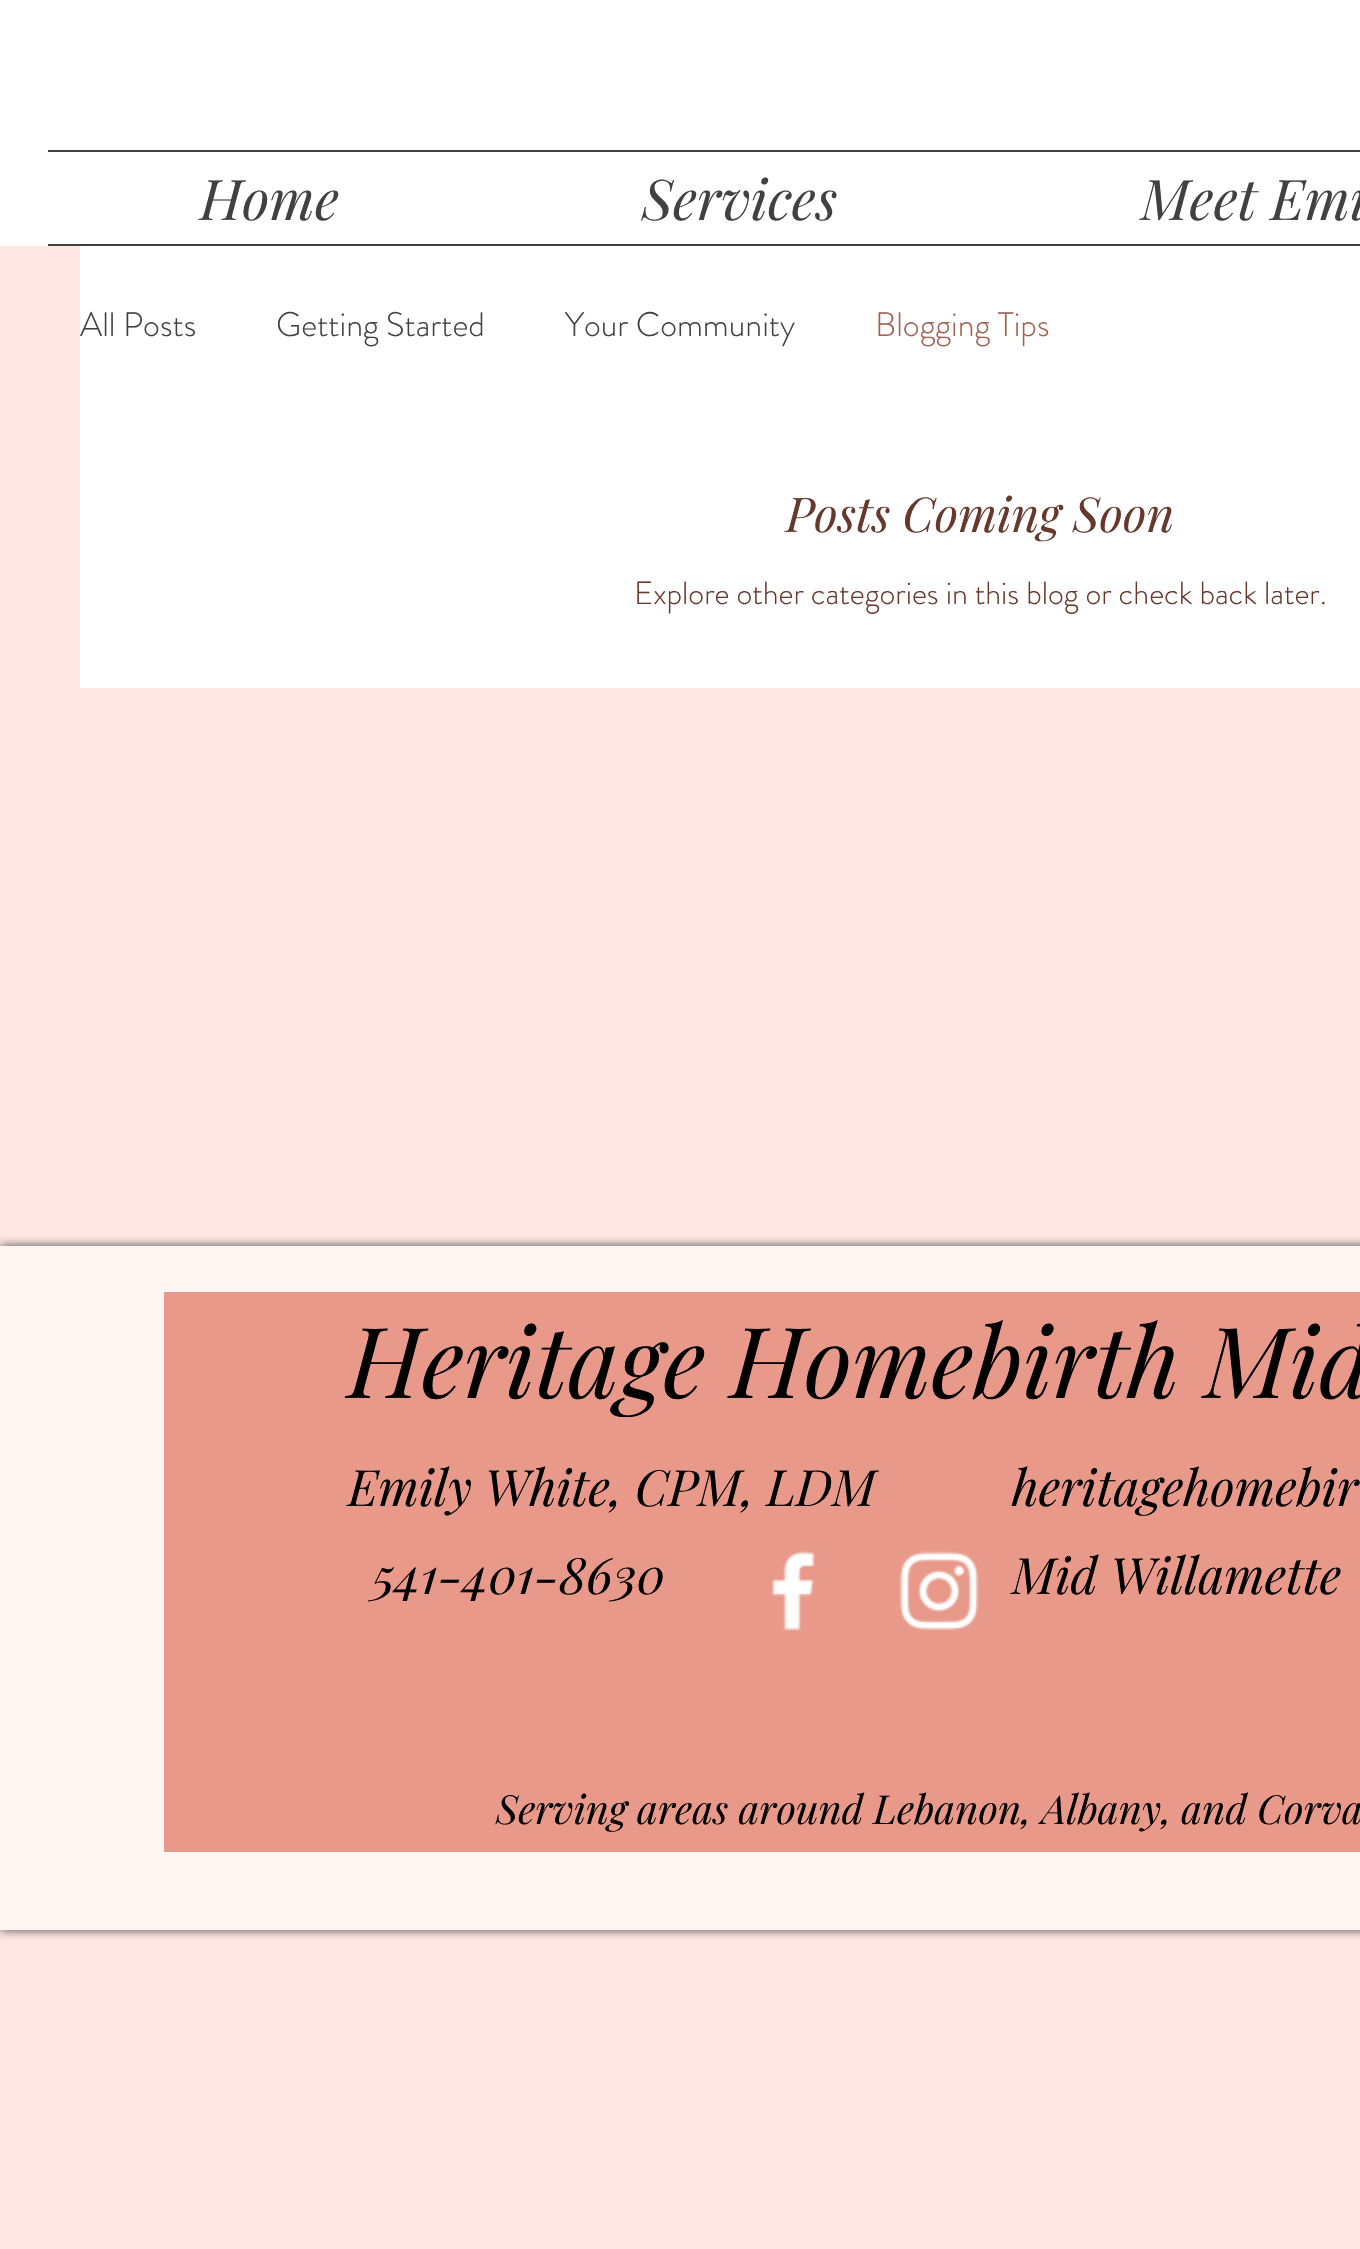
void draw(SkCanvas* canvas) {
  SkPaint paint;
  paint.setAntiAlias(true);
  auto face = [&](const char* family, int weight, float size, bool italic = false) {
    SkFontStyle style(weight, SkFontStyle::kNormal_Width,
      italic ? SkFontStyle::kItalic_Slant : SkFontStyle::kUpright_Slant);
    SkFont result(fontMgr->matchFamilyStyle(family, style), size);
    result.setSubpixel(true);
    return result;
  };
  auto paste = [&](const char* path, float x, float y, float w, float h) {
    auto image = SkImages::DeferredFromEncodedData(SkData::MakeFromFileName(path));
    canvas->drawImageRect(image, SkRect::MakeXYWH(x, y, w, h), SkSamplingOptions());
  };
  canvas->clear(0xffffe8e3);
  {
    const struct { float x, y, w, h; SkColor color; } items[] = {
      {0, 0, 1360, 246, 0xffffffff},
      {48, 150, 1312, 2, 0xff414141},
      {48, 244, 1312, 2, 0xff414141},
      {80, 246, 1280, 442, 0xffffffff},
    };
    for (auto [x, y, w, h, color] : items) {
      paint.setColor(color);
      canvas->drawRect(SkRect::MakeXYWH(x, y, w, h), paint);
    }
  }
  paint.setColor(0xb3000000);
  paint.setMaskFilter(SkMaskFilter::MakeBlur(kNormal_SkBlurStyle, 5));
  canvas->drawRect(SkRect::MakeXYWH(0, 1246, 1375, 684), paint);
  paint.setMaskFilter(nullptr);
  paint.setColor(0xfffff5f3);
  canvas->drawRect(SkRect::MakeXYWH(0, 1246, 1360, 684), paint);
  paint.setColor(0xffe89989);
  canvas->drawRect(SkRect::MakeXYWH(164, 1292, 1196, 560), paint);
  paste("img/1.png", 771, 1551, 44, 80);
  paste("img/2.png", 899, 1551, 80, 80);
  auto f0 = face("Playfair Display", 400, 56, true);
  paint.setColor(0xff414141);
  {
    const struct { const char* s; float x, y; } items[] = {
      {"Home", 200, 220},
      {"Services", 642, 220},
      {"Meet Emi", 1141, 220},
    };
    for (auto [s, x, y] : items) {
      canvas->drawString(s, x, y, f0, paint);
    }
  }
  auto f1 = face("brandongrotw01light", 300, 34);
  {
    const struct { const char* s; float x, y; } items[] = {
      {"All Posts", 80, 336},
      {"Getting Started", 276, 336},
      {"Your Community", 565, 336},
    };
    for (auto [s, x, y] : items) {
      canvas->drawString(s, x, y, f1, paint);
    }
  }
  paint.setColor(0xffa35f50);
  canvas->drawString("Blogging Tips", 875, 336, f1, paint);
  auto f2 = face("Playfair Display", 400, 48, true);
  paint.setColor(0xff69382d);
  canvas->drawString("Posts Coming Soon", 786, 532, f2, paint);
  auto f3 = face("brandongrotw01light", 300, 32);
  canvas->drawString("Explore other categories in this blog or check back later.", 634, 604, f3, paint);
  auto f4 = face("Playfair Display", 400, 98, true);
  paint.setColor(0xff000000);
  canvas->drawString("Heritage Homebirth Mid", 348, 1398, f4, paint);
  auto f5 = face("Playfair Display", 400, 50, true);
  {
    const struct { const char* s; float x, y; } items[] = {
      {"Emily White, CPM, LDM", 348, 1506},
      {"heritagehomebir", 1012, 1506},
      {"541-401-8630", 372, 1594},
      {"Mid Willamette", 1012, 1594},
    };
    for (auto [s, x, y] : items) {
      canvas->drawString(s, x, y, f5, paint);
    }
  }
  auto f6 = face("Playfair Display", 400, 40, true);
  canvas->drawString("Serving areas around Lebanon, Albany, and Corva", 496, 1824, f6, paint);
}
